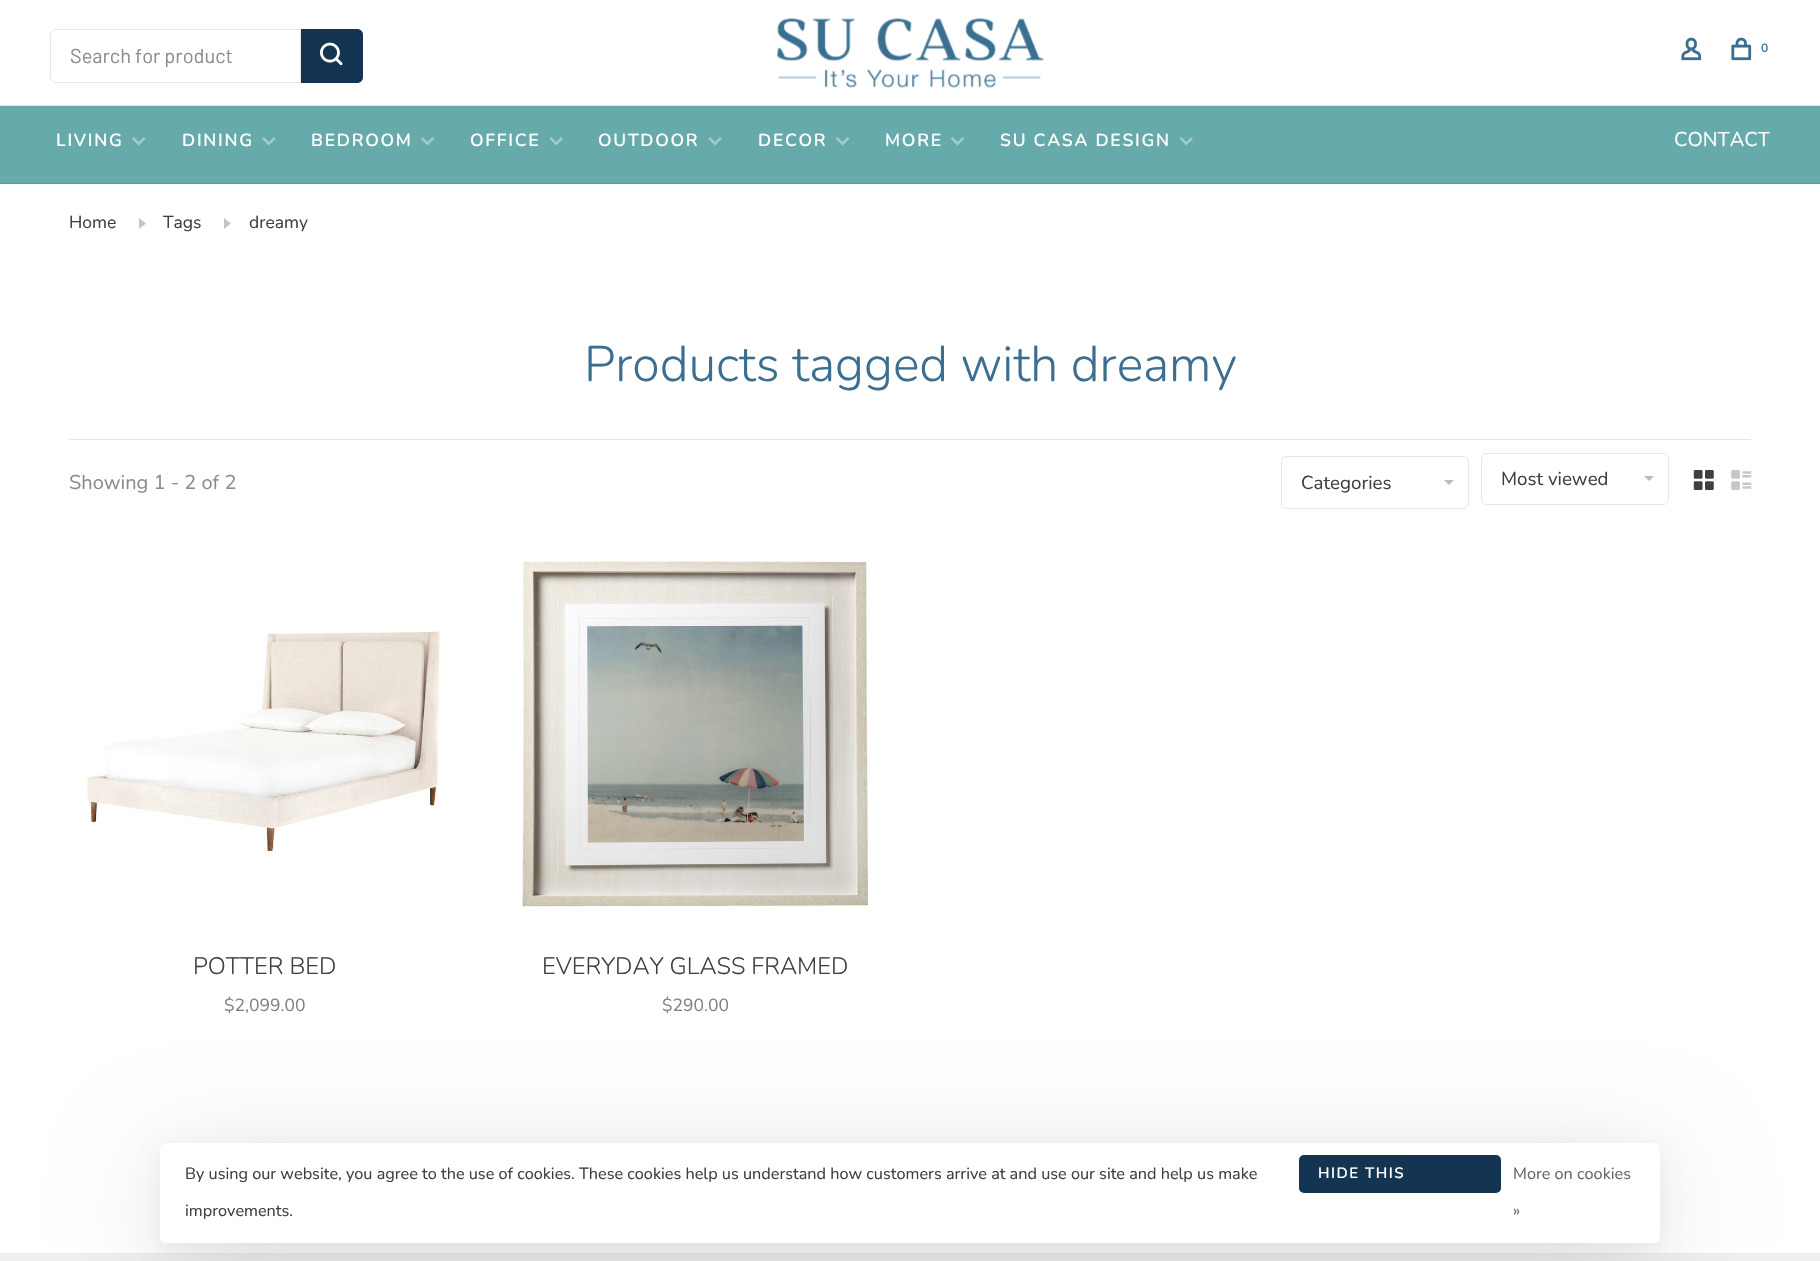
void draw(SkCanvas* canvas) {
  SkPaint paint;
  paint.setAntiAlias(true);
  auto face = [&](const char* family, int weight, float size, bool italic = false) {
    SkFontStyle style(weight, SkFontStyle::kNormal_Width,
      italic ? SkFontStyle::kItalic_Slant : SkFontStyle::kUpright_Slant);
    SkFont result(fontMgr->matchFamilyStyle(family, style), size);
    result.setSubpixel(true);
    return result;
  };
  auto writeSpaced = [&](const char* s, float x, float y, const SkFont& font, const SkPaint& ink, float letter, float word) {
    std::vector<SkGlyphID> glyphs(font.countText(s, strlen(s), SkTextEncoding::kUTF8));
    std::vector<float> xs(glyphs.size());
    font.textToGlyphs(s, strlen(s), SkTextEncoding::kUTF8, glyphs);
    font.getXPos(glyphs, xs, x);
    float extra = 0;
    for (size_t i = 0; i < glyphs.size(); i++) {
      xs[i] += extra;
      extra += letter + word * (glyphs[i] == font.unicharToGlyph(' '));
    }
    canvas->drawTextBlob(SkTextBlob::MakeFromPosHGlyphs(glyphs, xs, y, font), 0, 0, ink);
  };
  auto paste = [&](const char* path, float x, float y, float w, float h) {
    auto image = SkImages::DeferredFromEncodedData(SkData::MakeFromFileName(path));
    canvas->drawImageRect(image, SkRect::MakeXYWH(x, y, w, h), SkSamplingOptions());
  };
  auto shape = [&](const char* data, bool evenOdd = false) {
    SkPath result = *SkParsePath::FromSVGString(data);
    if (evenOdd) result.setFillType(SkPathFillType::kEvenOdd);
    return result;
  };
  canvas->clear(0xffffffff);
  paint.setColor(0xffe6e6e6);
  canvas->drawRect(SkRect::MakeXYWH(0, 105, 1820, 1), paint);
  paint.setStroke(true);
  paint.setStrokeWidth(1);
  canvas->drawPath(shape("M56 29.5H300.5V82.5H56C53 82.5 50.5 80 50.5 77V35C50.5 32 53 29.5 56 29.5Z"), paint);
  paint.setStroke(false);
  paint.setColor(0xff143552);
  canvas->drawPath(shape("M301 29H357C360.5 29 363 31.5 363 35V77C363 80.5 360.5 83 357 83H301Z"), paint);
  paste("img/1.png", 320, 42, 23, 24);
  paste("img/2.png", 776, 18, 268, 70);
  paste("img/3.png", 1681, 37, 21, 24);
  paste("img/4.png", 1731, 37, 21, 24);
  paint.setColor(0xff66aaac);
  canvas->drawRect(SkRect::MakeXYWH(0, 106, 1820, 77), paint);
  paint.setColor(0xff5c999b);
  canvas->drawRect(SkRect::MakeXYWH(0, 183, 1820, 1), paint);
  paste("img/5.png", 132, 137, 14, 9);
  paste("img/5.png", 262, 137, 14, 9);
  paste("img/6.png", 420, 137, 15, 9);
  paste("img/7.png", 549, 137, 14, 9);
  paste("img/8.png", 708, 137, 14, 9);
  paste("img/6.png", 835, 137, 15, 9);
  paste("img/6.png", 950, 137, 15, 9);
  paste("img/7.png", 1179, 137, 14, 9);
  paint.setColor(0xffc5c5c5);
  canvas->drawPath(shape("M139 229L146 223.5L139 218Z"), paint);
  canvas->drawPath(shape("M224 229L231 223.5L224 218Z"), paint);
  paint.setColor(0xffe6e6e6);
  canvas->drawRect(SkRect::MakeXYWH(69, 439, 1682, 1), paint);
  paint.setStroke(true);
  canvas->drawRoundRect(SkRect::MakeXYWH(1281.5f, 456.5f, 187, 52), 5.5f, 5.5f, paint);
  paint.setStroke(false);
  paint.setColor(0xffbbbbbb);
  canvas->drawPath(shape("M1444 480H1454L1449 485Z"), paint);
  paint.setStroke(true);
  paint.setColor(0xffe6e6e6);
  canvas->drawRoundRect(SkRect::MakeXYWH(1481.5f, 453.5f, 187, 51), 5.5f, 5.5f, paint);
  paint.setStroke(false);
  paint.setColor(0xffbbbbbb);
  canvas->drawPath(shape("M1644 476H1654L1649 481Z"), paint);
  paste("img/9.png", 1693, 470, 21, 20);
  paste("img/10.png", 1731, 470, 21, 20);
  paste("img/11.png", 87, 630, 355, 224);
  paste("img/12.png", 522, 561, 347, 347);
  paint.setColor(0xffefefef);
  canvas->drawRect(SkRect::MakeXYWH(0, 1253, 1820, 8), paint);
  paint.setColor(0x0d000000);
  paint.setMaskFilter(SkMaskFilter::MakeBlur(kNormal_SkBlurStyle, 9.5f));
  canvas->drawRoundRect(SkRect::MakeXYWH(160, 1150, 1500, 100), 6, 6, paint);
  paint.setMaskFilter(nullptr);
  paint.setColor(0x26000000);
  paint.setMaskFilter(SkMaskFilter::MakeBlur(kNormal_SkBlurStyle, 54));
  canvas->drawRect(SkRect::MakeXYWH(168, 1168, 1485, 85), paint);
  paint.setMaskFilter(nullptr);
  paint.setColor(0xffffffff);
  canvas->drawRoundRect(SkRect::MakeXYWH(160, 1143, 1500, 100), 6, 6, paint);
  paint.setColor(0xff143552);
  canvas->drawRoundRect(SkRect::MakeXYWH(1299, 1155, 202, 38), 5, 5, paint);
  auto f0 = face("Barlow", 400, 20);
  paint.setColor(0xff8b8c8c);
  canvas->drawString("Search for product", 70, 63, f0, paint);
  auto f1 = face("Nunito", 600, 12);
  paint.setColor(0xff3b6e8f);
  writeSpaced("0", 1761, 52, f1, paint, 1.75f, 0);
  auto f2 = face("Nunito", 600, 17.5f);
  paint.setColor(0xffffffff);
  {
    const struct { const char* s; float x, y; } items[] = {
      {"LIVING", 56, 146},
      {"DINING", 182, 146},
      {"BEDROOM", 311, 146},
      {"OFFICE", 470, 146},
      {"OUTDOOR", 598, 146},
      {"DECOR", 758, 146},
      {"MORE", 885, 146},
      {"SU CASA DESIGN", 1000, 146},
    };
    for (auto [s, x, y] : items) {
      writeSpaced(s, x, y, f2, paint, 1.75f, 0);
    }
  }
  auto f3 = face("Nunito", 400, 20);
  canvas->drawString("CONTACT", 1674, 146, f3, paint);
  auto f4 = face("Nunito", 400, 17.5f);
  paint.setColor(0xff3e3f3f);
  {
    const struct { const char* s; float x, y; } items[] = {
      {"Home", 69, 228},
      {"Tags", 163, 228},
      {"dreamy", 249, 228},
    };
    for (auto [s, x, y] : items) {
      canvas->drawString(s, x, y, f4, paint);
    }
  }
  auto f5 = face("Nunito", 300, 50);
  paint.setColor(0xff3b6e8f);
  canvas->drawString("Products tagged with dreamy", 584, 381, f5, paint);
  paint.setColor(0xff8b8c8c);
  canvas->drawString("Showing 1 - 2 of 2", 69, 489, f3, paint);
  auto f6 = face("Nunito", 400, 18.75f);
  paint.setColor(0xff3e3f3f);
  canvas->drawString("Categories", 1301, 489, f6, paint);
  canvas->drawString("Most viewed", 1501, 485, f6, paint);
  auto f7 = face("Nunito", 300, 23.75f);
  canvas->drawString("POTTER BED", 193, 974, f7, paint);
  paint.setColor(0xff828282);
  canvas->drawString("$2,099.00", 224, 1011, f4, paint);
  paint.setColor(0xff3e3f3f);
  canvas->drawString("EVERYDAY GLASS FRAMED", 542, 974, f7, paint);
  paint.setColor(0xff828282);
  canvas->drawString("$290.00", 662, 1011, f4, paint);
  auto f8 = face("Nunito", 400, 16.25f);
  paint.setColor(0xff3e3f3f);
  canvas->drawString("By using our website, you agree to the use of cookies. These cookies help us understand how customers arrive at and use our site and help us make", 185, 1179, f8, paint);
  auto f9 = face("Nunito", 600, 15);
  paint.setColor(0xffffffff);
  writeSpaced("HIDE THIS", 1318, 1178, f9, paint, 1.5f, 0);
  paint.setColor(0xff666666);
  canvas->drawString("More on cookies", 1513, 1179, f8, paint);
  canvas->drawString("»", 1513, 1216, f8, paint);
  paint.setColor(0xff3e3f3f);
  canvas->drawString("improvements.", 185, 1216, f8, paint);
}
